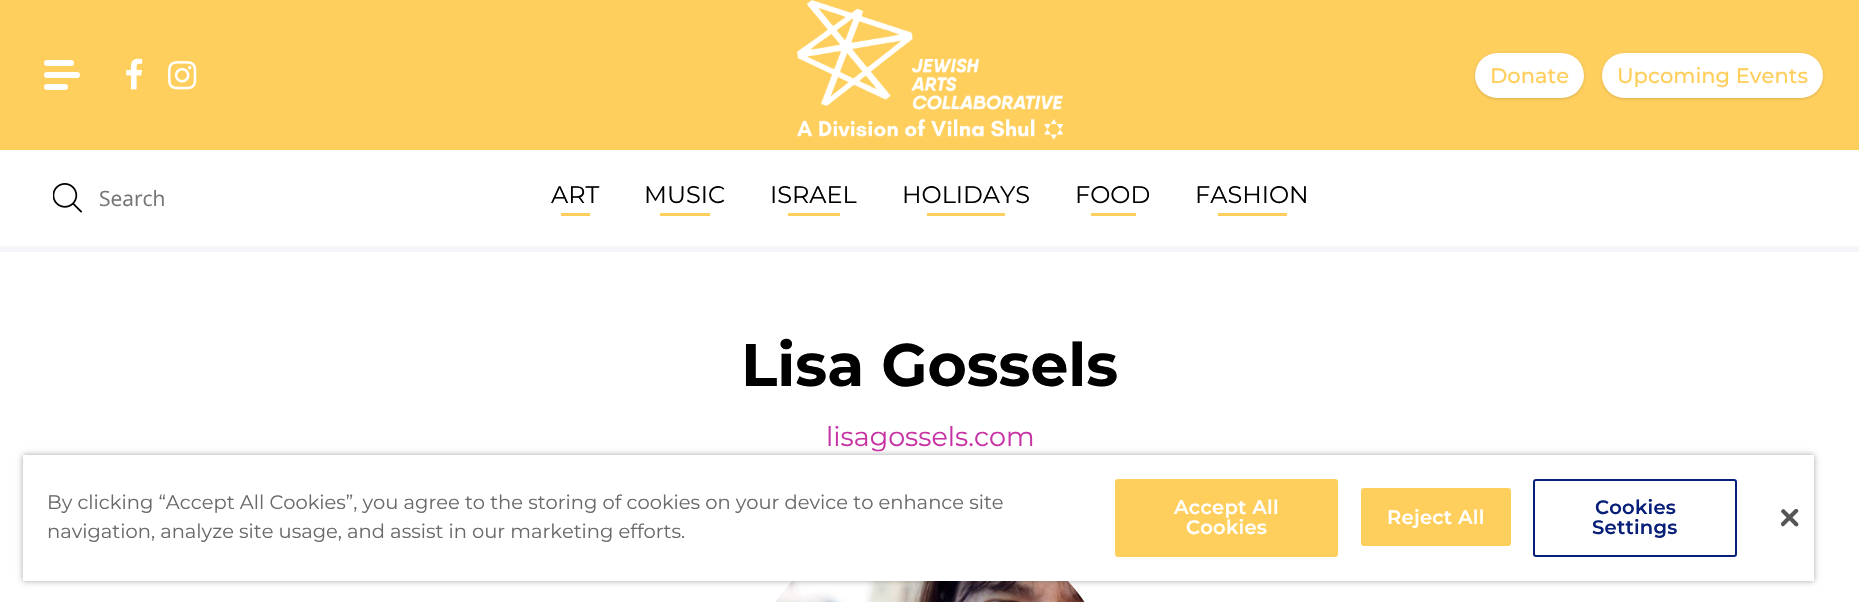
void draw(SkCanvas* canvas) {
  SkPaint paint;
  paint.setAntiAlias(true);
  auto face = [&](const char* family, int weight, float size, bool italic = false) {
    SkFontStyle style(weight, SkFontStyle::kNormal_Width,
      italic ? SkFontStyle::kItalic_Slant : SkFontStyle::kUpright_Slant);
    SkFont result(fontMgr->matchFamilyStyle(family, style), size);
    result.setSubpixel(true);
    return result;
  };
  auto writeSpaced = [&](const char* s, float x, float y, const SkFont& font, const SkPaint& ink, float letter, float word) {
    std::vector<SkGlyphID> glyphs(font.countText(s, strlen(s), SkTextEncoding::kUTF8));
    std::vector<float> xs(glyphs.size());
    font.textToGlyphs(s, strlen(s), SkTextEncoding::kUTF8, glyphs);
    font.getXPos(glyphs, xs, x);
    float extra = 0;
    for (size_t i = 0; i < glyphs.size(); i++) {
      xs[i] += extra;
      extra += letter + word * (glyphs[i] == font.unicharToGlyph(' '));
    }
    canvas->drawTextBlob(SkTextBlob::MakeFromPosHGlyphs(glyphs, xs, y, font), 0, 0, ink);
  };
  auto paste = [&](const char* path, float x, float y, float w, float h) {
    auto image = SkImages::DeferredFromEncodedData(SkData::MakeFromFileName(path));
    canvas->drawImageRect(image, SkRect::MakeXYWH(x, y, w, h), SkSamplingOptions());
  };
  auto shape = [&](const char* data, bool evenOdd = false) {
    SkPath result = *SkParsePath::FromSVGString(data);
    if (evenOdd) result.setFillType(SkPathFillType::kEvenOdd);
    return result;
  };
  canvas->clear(0xffffffff);
  paint.setColor(0xfff4f6f9);
  canvas->drawRect(SkRect::MakeXYWH(0, 246, 1859, 6), paint);
  paint.setColor(0xffffcf5e);
  canvas->drawRect(SkRect::MakeXYWH(0, 0, 1859, 150), paint);
  paint.setColor(0xffffffff);
  canvas->drawRoundRect(SkRect::MakeXYWH(44, 60, 30, 6), 3, 3, paint);
  canvas->drawRoundRect(SkRect::MakeXYWH(44, 72, 36, 6), 3, 3, paint);
  canvas->drawRoundRect(SkRect::MakeXYWH(44, 84, 24, 6), 3, 3, paint);
  paste("img/1.png", 126, 58, 17, 32);
  paste("img/2.png", 168, 61, 29, 29);
  paste("img/3.png", 797, 0, 267, 140);
  paint.setColor(0x26000000);
  paint.setMaskFilter(SkMaskFilter::MakeBlur(kNormal_SkBlurStyle, 1.5f));
  canvas->drawRoundRect(SkRect::MakeXYWH(1475, 54, 109, 45), 22.5f, 22.5f, paint);
  paint.setMaskFilter(nullptr);
  paint.setColor(0xffffffff);
  canvas->drawRoundRect(SkRect::MakeXYWH(1475, 53, 109, 45), 22.5f, 22.5f, paint);
  canvas->save();
  canvas->clipPath(shape("M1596 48H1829V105H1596ZM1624.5 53H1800.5C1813 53 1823 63 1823 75.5C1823 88 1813 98 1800.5 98H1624.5C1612 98 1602 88 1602 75.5C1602 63 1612 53 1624.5 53Z", true), true);
  paint.setColor(0x26000000);
  paint.setMaskFilter(SkMaskFilter::MakeBlur(kNormal_SkBlurStyle, 1.5f));
  canvas->drawRoundRect(SkRect::MakeXYWH(1602, 54, 221, 45), 22.5f, 22.5f, paint);
  paint.setMaskFilter(nullptr);
  canvas->restore();
  paint.setColor(0xffffffff);
  canvas->drawRoundRect(SkRect::MakeXYWH(1602, 53, 221, 45), 22.5f, 22.5f, paint);
  paste("img/4.png", 53, 183, 30, 30);
  {
    const struct { float x, y, w, h; SkColor color; } items[] = {
      {561, 213, 29, 3, 0xffffcf5e},
      {660, 213, 50, 3, 0xffffcf5e},
      {788, 213, 52, 3, 0xffffcf5e},
      {927, 213, 78, 3, 0xffffcf5e},
      {1091, 213, 45, 3, 0xffffcf5e},
      {1218, 213, 69, 3, 0xffffcf5e},
    };
    for (auto [x, y, w, h, color] : items) {
      paint.setColor(color);
      canvas->drawRect(SkRect::MakeXYWH(x, y, w, h), paint);
    }
  }
  paste("img/5.png", 775, 581, 310, 21);
  paint.setColor(0x59000000);
  paint.setMaskFilter(SkMaskFilter::MakeBlur(kNormal_SkBlurStyle, 3));
  canvas->drawRect(SkRect::MakeXYWH(23, 455, 1791, 126), paint);
  paint.setMaskFilter(nullptr);
  paint.setColor(0xffffffff);
  canvas->drawRect(SkRect::MakeXYWH(23, 455, 1791, 126), paint);
  paint.setColor(0xffffcf5e);
  canvas->drawRoundRect(SkRect::MakeXYWH(1116, 480, 221, 76), 2, 2, paint);
  paint.setStroke(true);
  paint.setStrokeWidth(2);
  canvas->drawRoundRect(SkRect::MakeXYWH(1116, 480, 221, 76), 2, 2, paint);
  paint.setStroke(false);
  canvas->drawRoundRect(SkRect::MakeXYWH(1362, 489, 148, 56), 2, 2, paint);
  paint.setStroke(true);
  canvas->drawRoundRect(SkRect::MakeXYWH(1362, 489, 148, 56), 2, 2, paint);
  paint.setColor(0xff081f79);
  canvas->drawRoundRect(SkRect::MakeXYWH(1534, 480, 202, 76), 2, 2, paint);
  paste("img/6.png", 1781, 509, 18, 18);
  auto f0 = face("Montserrat", 500, 21);
  paint.setStroke(false);
  paint.setColor(0xffffcf5e);
  canvas->drawString("Donate", 1490, 83, f0, paint);
  canvas->drawString("Upcoming Events", 1617, 83, f0, paint);
  auto f1 = face("Open Sans", 400, 21);
  paint.setColor(0xff757575);
  canvas->drawString("Search", 99, 206, f1, paint);
  auto f2 = face("Montserrat", 400, 24);
  paint.setColor(0xff000000);
  {
    const struct { const char* s; float x, y; } items[] = {
      {"ART", 551, 203},
      {"MUSIC", 644, 203},
      {"ISRAEL", 770, 203},
      {"HOLIDAYS", 902, 203},
      {"FOOD", 1075, 203},
      {"FASHION", 1195, 203},
    };
    for (auto [s, x, y] : items) {
      canvas->drawString(s, x, y, f2, paint);
    }
  }
  auto f3 = face("Montserrat", 700, 60);
  canvas->drawString("Lisa Gossels", 741, 386, f3, paint);
  auto f4 = face("Montserrat", 400, 27);
  paint.setColor(0xffc733a4);
  canvas->drawString("lisagossels.com", 826, 446, f4, paint);
  auto f5 = face("Montserrat", 400, 19.5f);
  paint.setColor(0xff696969);
  canvas->drawString("By clicking “Accept All Cookies”, you agree to the storing of cookies on your device to enhance site", 47, 509, f5, paint);
  canvas->drawString("navigation, analyze site usage, and assist in our marketing efforts.", 47, 538, f5, paint);
  auto f6 = face("Montserrat", 600, 19.5f);
  paint.setColor(0xffffffff);
  {
    const struct { const char* s; float x, y; } items[] = {
      {"Accept All", 1174, 514},
      {"Cookies", 1186, 534},
      {"Reject All", 1387, 524},
    };
    for (auto [s, x, y] : items) {
      writeSpaced(s, x, y, f6, paint, 0.25f, 0);
    }
  }
  paint.setColor(0xff081f79);
  writeSpaced("Cookies", 1595, 514, f6, paint, 0.25f, 0);
  writeSpaced("Settings", 1592, 534, f6, paint, 0.25f, 0);
}
